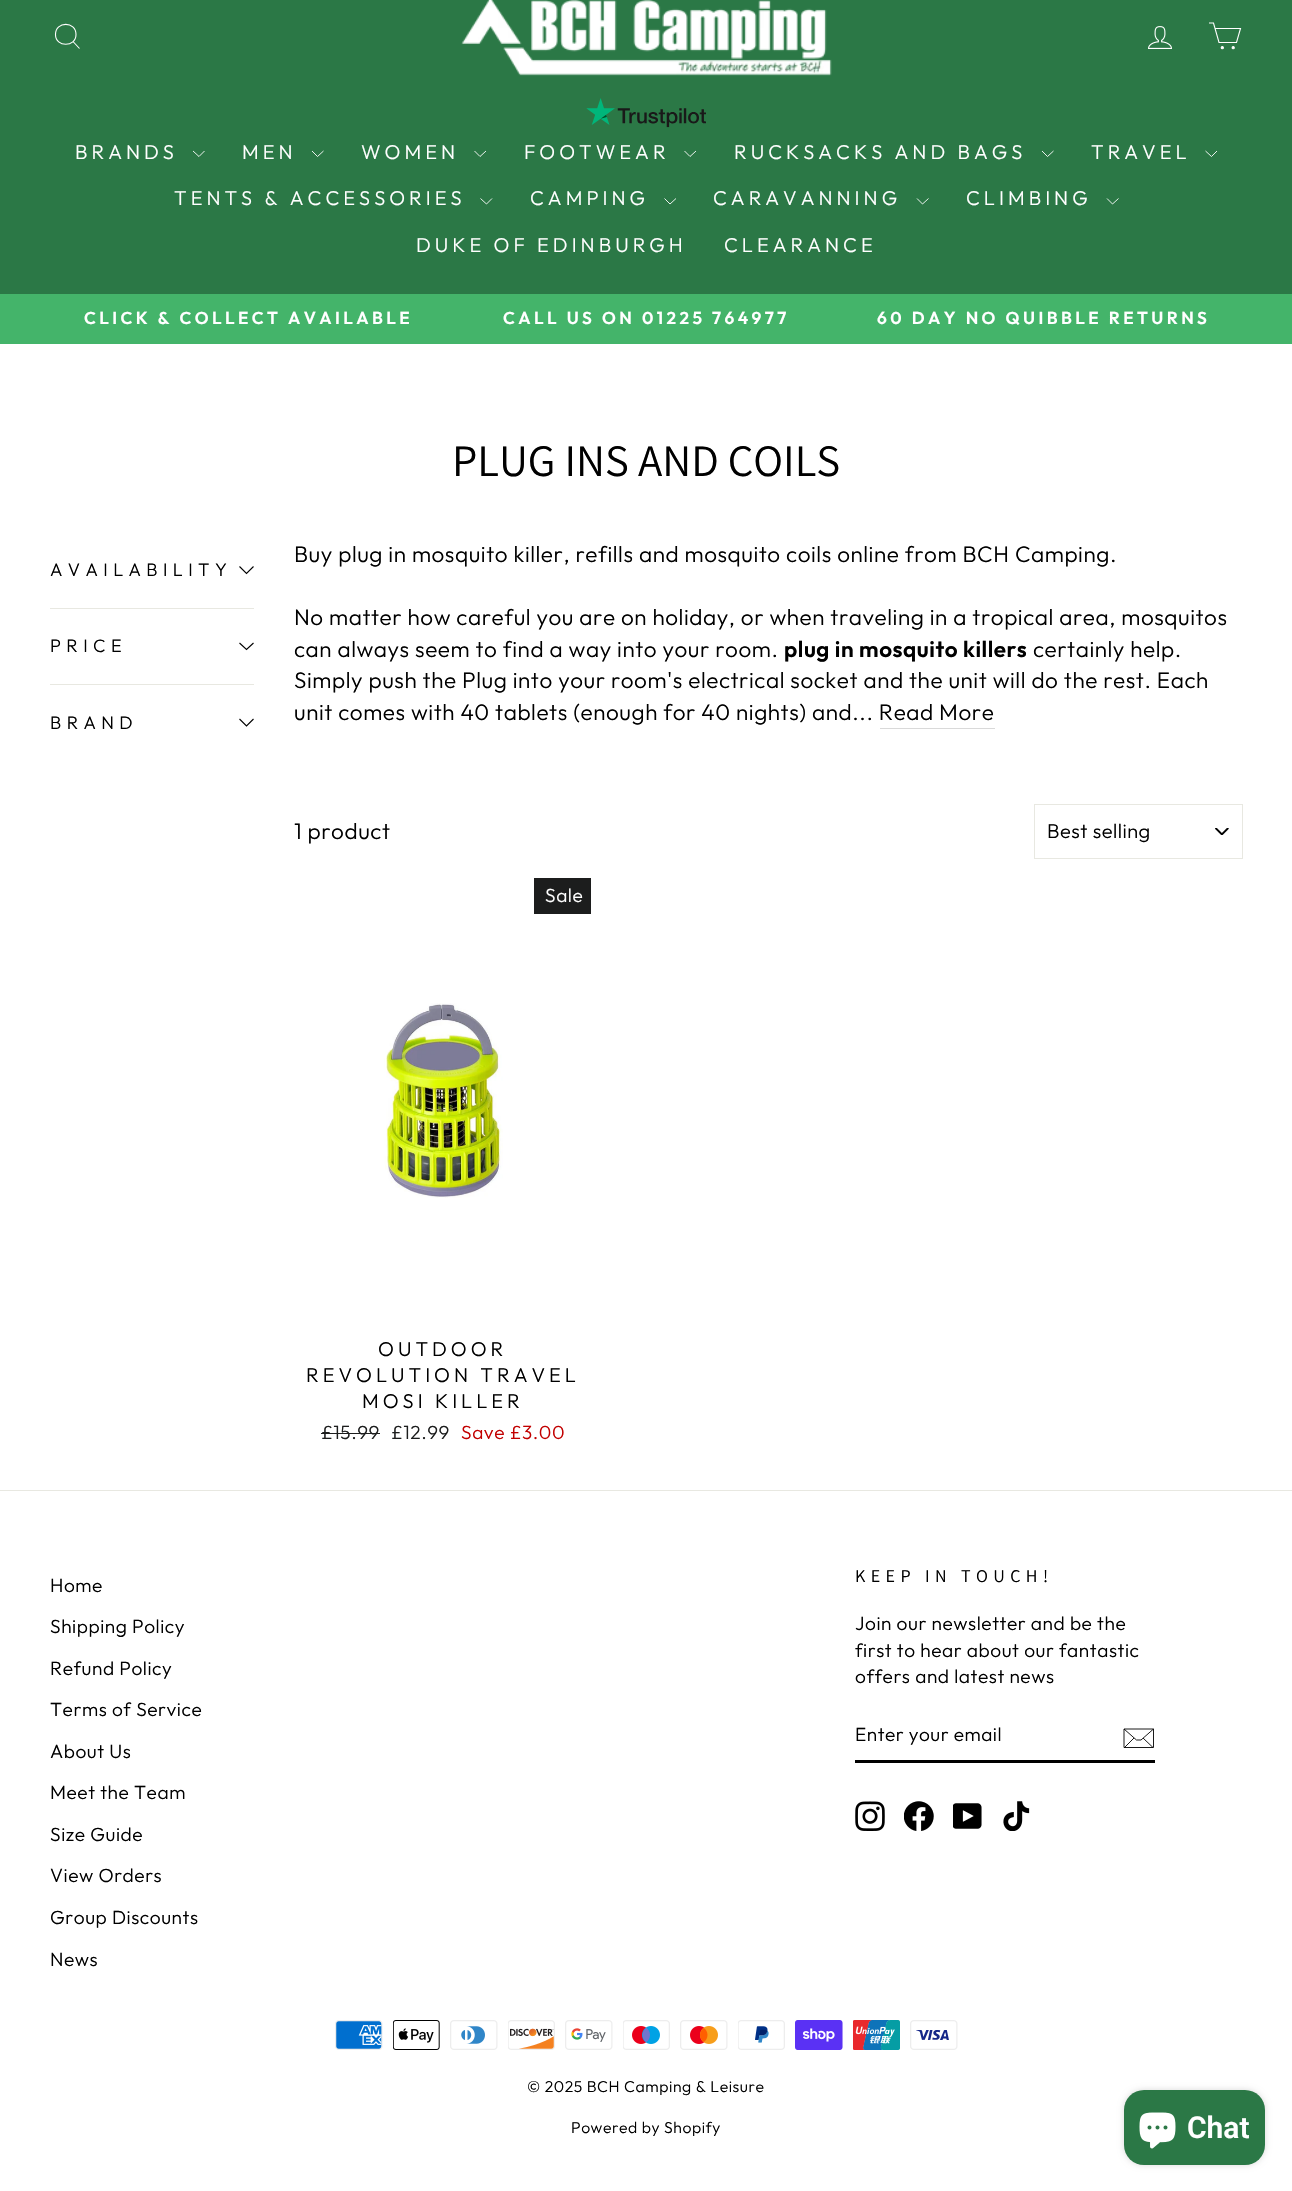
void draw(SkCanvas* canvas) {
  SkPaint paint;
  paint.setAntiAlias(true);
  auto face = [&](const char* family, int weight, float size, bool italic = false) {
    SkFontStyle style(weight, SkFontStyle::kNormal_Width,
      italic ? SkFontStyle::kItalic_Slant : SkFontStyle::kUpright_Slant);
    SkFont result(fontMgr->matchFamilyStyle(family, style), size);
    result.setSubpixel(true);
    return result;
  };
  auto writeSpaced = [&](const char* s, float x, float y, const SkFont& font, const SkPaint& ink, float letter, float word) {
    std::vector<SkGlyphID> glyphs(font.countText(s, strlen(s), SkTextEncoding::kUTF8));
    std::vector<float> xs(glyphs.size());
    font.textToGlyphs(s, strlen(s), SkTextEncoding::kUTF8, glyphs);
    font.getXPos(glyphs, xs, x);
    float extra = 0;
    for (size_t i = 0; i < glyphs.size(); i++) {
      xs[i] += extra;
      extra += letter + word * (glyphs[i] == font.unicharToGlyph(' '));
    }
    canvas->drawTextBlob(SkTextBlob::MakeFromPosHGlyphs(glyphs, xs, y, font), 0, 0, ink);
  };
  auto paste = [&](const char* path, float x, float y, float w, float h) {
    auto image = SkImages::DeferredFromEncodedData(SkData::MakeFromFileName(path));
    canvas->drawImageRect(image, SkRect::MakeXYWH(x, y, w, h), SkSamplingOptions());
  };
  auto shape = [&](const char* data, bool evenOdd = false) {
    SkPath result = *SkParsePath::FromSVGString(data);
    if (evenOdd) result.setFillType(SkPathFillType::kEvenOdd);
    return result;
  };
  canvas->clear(0xffffffff);
  paint.setColor(0xff2b7846);
  canvas->drawRect(SkRect::MakeXYWH(0, 0, 1292, 294), paint);
  paint.setStroke(true);
  paint.setStrokeWidth(1.1f);
  paint.setColor(0xffffffff);
  canvas->drawPath(shape("M76 34.5C76 47.5 55.5 47.5 55.5 34.5C55.5 21 76 21 76 34.5ZM79.5 48.5L73 41.5"), paint);
  paste("img/1.png", 461, 0, 371, 76);
  paste("img/2.png", 1148, 26, 24, 23);
  canvas->drawPath(shape("M1215 28.5H1240.5L1236.5 42.5H1219L1213.5 23H1209"), paint);
  paint.setStroke(false);
  canvas->drawCircle(1222.3f, 47.7f, 1.1f, paint);
  paint.setStroke(true);
  canvas->drawCircle(1222.3f, 47.7f, 1.1f, paint);
  paint.setStroke(false);
  canvas->drawCircle(1233.2f, 47.7f, 1.1f, paint);
  paint.setStroke(true);
  canvas->drawCircle(1233.2f, 47.7f, 1.1f, paint);
  paste("img/3.png", 586, 98, 120, 30);
  paint.setStrokeWidth(0.9f);
  canvas->drawPath(shape("M193 151L199 156.5L204.5 151"), paint);
  canvas->drawPath(shape("M312 151L317.5 156.5L323.5 151"), paint);
  canvas->drawPath(shape("M474.5 151L480 156.5L486 151"), paint);
  canvas->drawPath(shape("M684.5 151L690 156.5L696 151"), paint);
  canvas->drawPath(shape("M1042 151L1047.5 156.5L1053.5 151"), paint);
  canvas->drawPath(shape("M1205.5 151L1211.5 156.5L1217 151"), paint);
  canvas->drawPath(shape("M480.5 198.5L486.5 204L492 198.5"), paint);
  canvas->drawPath(shape("M664.5 198.5L670 204L676 198.5"), paint);
  canvas->drawPath(shape("M917 198.5L922.5 204L928.5 198.5"), paint);
  canvas->drawPath(shape("M1107 198.5L1112.5 204L1118.5 198.5"), paint);
  paint.setStroke(false);
  paint.setColor(0xff44b46a);
  canvas->drawRect(SkRect::MakeXYWH(0, 294, 1292, 50), paint);
  paint.setStroke(true);
  paint.setStrokeWidth(1.1f);
  paint.setColor(0xff000000);
  canvas->drawPath(shape("M239.5 566.5L246.5 573.5L253.5 566.5"), paint);
  paint.setStroke(false);
  paint.setColor(0xffe8e8e1);
  canvas->drawRect(SkRect::MakeXYWH(50, 608, 204, 1), paint);
  paint.setStroke(true);
  paint.setColor(0xff000000);
  canvas->drawPath(shape("M239.5 643L246.5 649.5L253.5 643"), paint);
  paint.setStroke(false);
  paint.setColor(0xffe8e8e1);
  canvas->drawRect(SkRect::MakeXYWH(50, 684, 204, 1), paint);
  paint.setStroke(true);
  paint.setColor(0xff000000);
  canvas->drawPath(shape("M239.5 719L246.5 726L253.5 719"), paint);
  paint.setStroke(false);
  paint.setColor(0xffd9d9d9);
  canvas->drawRect(SkRect::MakeXYWH(880, 728, 115, 1), paint);
  paste("img/4.png", 1215, 828, 14, 7);
  paint.setStroke(true);
  paint.setStrokeWidth(1);
  paint.setColor(0xffe8e8e1);
  canvas->drawRect(SkRect::MakeXYWH(1034.5f, 804.5f, 208, 54), paint);
  paint.setStroke(false);
  paint.setColor(0xff1c1d1d);
  canvas->drawRect(SkRect::MakeXYWH(534, 878, 57, 36), paint);
  paste("img/5.png", 384, 1003, 119, 195);
  {
    const struct { float x, y, w, h; SkColor color; } items[] = {
      {321, 1433, 59, 1, 0xff1c1d1d},
      {0, 1490, 1292, 1, 0xffe8e8e1},
      {855, 1760, 300, 3, 0xff000000},
    };
    for (auto [x, y, w, h, color] : items) {
      paint.setColor(color);
      canvas->drawRect(SkRect::MakeXYWH(x, y, w, h), paint);
    }
  }
  paint.setStroke(true);
  paint.setStrokeWidth(0.9f);
  canvas->drawPath(shape("M1153.5 1747.5H1124V1729H1153.5ZM1124 1729L1136.5 1740H1141L1153.5 1729M1134 1738L1124.5 1747.5M1153 1747.5L1143 1738"), paint);
  paste("img/6.png", 855, 1801, 30, 30);
  paste("img/7.png", 904, 1801, 30, 30);
  paste("img/8.png", 953, 1803, 29, 26);
  paste("img/9.png", 1003, 1801, 27, 30);
  paste("img/10.png", 335, 2020, 48, 30);
  paste("img/11.png", 393, 2020, 47, 30);
  paste("img/12.png", 450, 2020, 48, 30);
  paste("img/13.png", 508, 2020, 47, 30);
  paste("img/14.png", 565, 2020, 48, 30);
  paste("img/15.png", 623, 2020, 47, 30);
  paste("img/16.png", 680, 2020, 48, 30);
  paste("img/17.png", 738, 2020, 47, 30);
  paste("img/18.png", 795, 2020, 48, 30);
  paste("img/19.png", 853, 2020, 47, 30);
  paste("img/20.png", 910, 2020, 48, 30);
  paint.setStroke(false);
  paint.setColor(0x26000000);
  paint.setMaskFilter(SkMaskFilter::MakeBlur(kNormal_SkBlurStyle, 3));
  canvas->drawRoundRect(SkRect::MakeXYWH(1124, 2090, 141, 75), 20, 20, paint);
  paint.setMaskFilter(nullptr);
  paint.setColor(0xff2b7846);
  canvas->drawRoundRect(SkRect::MakeXYWH(1124, 2090, 141, 75), 20, 20, paint);
  paste("img/21.png", 1139, 2112, 37, 37);
  auto f0 = face("Outfit", 300, 20);
  paint.setColor(0xffffffff);
  {
    const struct { const char* s; float x, y; } items[] = {
      {"BRANDS", 75, 159},
      {"MEN", 242, 159},
      {"WOMEN", 361, 159},
      {"FOOTWEAR", 524, 159},
      {"RUCKSACKS AND BAGS", 734, 159},
      {"TRAVEL", 1091, 159},
      {"TENTS & ACCESSORIES", 174, 205},
      {"CAMPING", 530, 205},
      {"CARAVANNING", 713, 205},
      {"CLIMBING", 966, 205},
      {"DUKE OF EDINBURGH", 416, 252},
      {"CLEARANCE", 724, 252},
    };
    for (auto [s, x, y] : items) {
      writeSpaced(s, x, y, f0, paint, 4, 0);
    }
  }
  auto f1 = face("Outfit", 600, 17.25f);
  {
    const struct { const char* s; float x, y; } items[] = {
      {"CLICK & COLLECT AVAILABLE", 84, 324},
      {"CALL US ON 01225 764977", 503, 324},
      {"60 DAY NO QUIBBLE RETURNS", 877, 324},
    };
    for (auto [s, x, y] : items) {
      writeSpaced(s, x, y, f1, paint, 3.4f, 0);
    }
  }
  auto f2 = face("Assistant", 400, 45);
  paint.setColor(0xff000000);
  canvas->drawString("PLUG INS AND COILS", 452, 476, f2, paint);
  auto f3 = face("Outfit", 300, 18);
  {
    const struct { const char* s; float x, y; } items[] = {
      {"AVAILABILITY", 50, 576},
      {"PRICE", 50, 652},
      {"BRAND", 50, 729},
    };
    for (auto [s, x, y] : items) {
      writeSpaced(s, x, y, f3, paint, 5.4f, 0);
    }
  }
  auto f4 = face("Outfit", 300, 22.5f);
  {
    const struct { const char* s; float x, y; } items[] = {
      {"Buy plug in mosquito killer, refills and mosquito coils online from BCH Camping.", 294, 562},
      {"No matter how careful you are on holiday, or when traveling in a tropical area, mosquitos", 294, 625},
      {"can always seem to find a way into your room.", 294, 657},
    };
    for (auto [s, x, y] : items) {
      writeSpaced(s, x, y, f4, paint, 0.55f, 0);
    }
  }
  auto f5 = face("Outfit", 600, 22.5f);
  writeSpaced("plug in mosquito killers", 784, 657, f5, paint, 0.55f, 0);
  {
    const struct { const char* s; float x, y; } items[] = {
      {"certainly help.", 1033, 657},
      {"Simply push the Plug into your room's electrical socket and the unit will do the rest. Each", 294, 688},
      {"unit comes with 40 tablets (enough for 40 nights) and... Read More", 294, 720},
      {"1 product", 294, 839},
    };
    for (auto [s, x, y] : items) {
      writeSpaced(s, x, y, f4, paint, 0.55f, 0);
    }
  }
  writeSpaced("Best selling", 1047, 838, f0, paint, 0.5f, 0);
  auto f6 = face("Outfit", 300, 19.1f);
  paint.setColor(0xffffffff);
  writeSpaced("Sale", 545, 902, f6, paint, 0.55f, 0);
  paint.setColor(0xff000000);
  {
    const struct { const char* s; float x, y; } items[] = {
      {"OUTDOOR", 378, 1356},
      {"REVOLUTION TRAVEL", 306, 1382},
      {"MOSI KILLER", 362, 1408},
    };
    for (auto [s, x, y] : items) {
      writeSpaced(s, x, y, f0, paint, 4, 0);
    }
  }
  paint.setColor(0xff1c1d1d);
  writeSpaced("£15.99", 321, 1439, f6, paint, 0.55f, 0);
  writeSpaced("£12.99", 391, 1439, f6, paint, 0.55f, 0);
  paint.setColor(0xffc20000);
  writeSpaced("Save £3.00", 461, 1439, f6, paint, 0.55f, 0);
  paint.setColor(0xff000000);
  {
    const struct { const char* s; float x, y; } items[] = {
      {"Home", 50, 1592},
      {"Shipping Policy", 50, 1633},
      {"Refund Policy", 50, 1675},
      {"Terms of Service", 50, 1716},
      {"About Us", 50, 1758},
      {"Meet the Team", 50, 1799},
      {"Size Guide", 50, 1841},
      {"View Orders", 50, 1882},
      {"Group Discounts", 50, 1924},
      {"News", 50, 1966},
    };
    for (auto [s, x, y] : items) {
      writeSpaced(s, x, y, f6, paint, 0.55f, 0);
    }
  }
  auto f7 = face("Assistant", 400, 18);
  writeSpaced("KEEP IN TOUCH!", 855, 1582, f7, paint, 5.4f, 0);
  {
    const struct { const char* s; float x, y; } items[] = {
      {"Join our newsletter and be the", 855, 1630},
      {"first to hear about our fantastic", 855, 1657},
      {"offers and latest news", 855, 1683},
    };
    for (auto [s, x, y] : items) {
      writeSpaced(s, x, y, f6, paint, 0.55f, 0);
    }
  }
  writeSpaced("Enter your email", 855, 1741, f6, paint, 0.5f, 0);
  auto f8 = face("Outfit", 300, 15.75f);
  writeSpaced("© 2025 BCH Camping & Leisure", 527, 2092, f8, paint, 0.55f, 0);
  writeSpaced("Powered by Shopify", 571, 2133, f8, paint, 0.55f, 0);
  auto f9 = face("Roboto", 600, 30);
  paint.setColor(0xffffffff);
  canvas->drawString("Chat", 1187, 2138, f9, paint);
}
